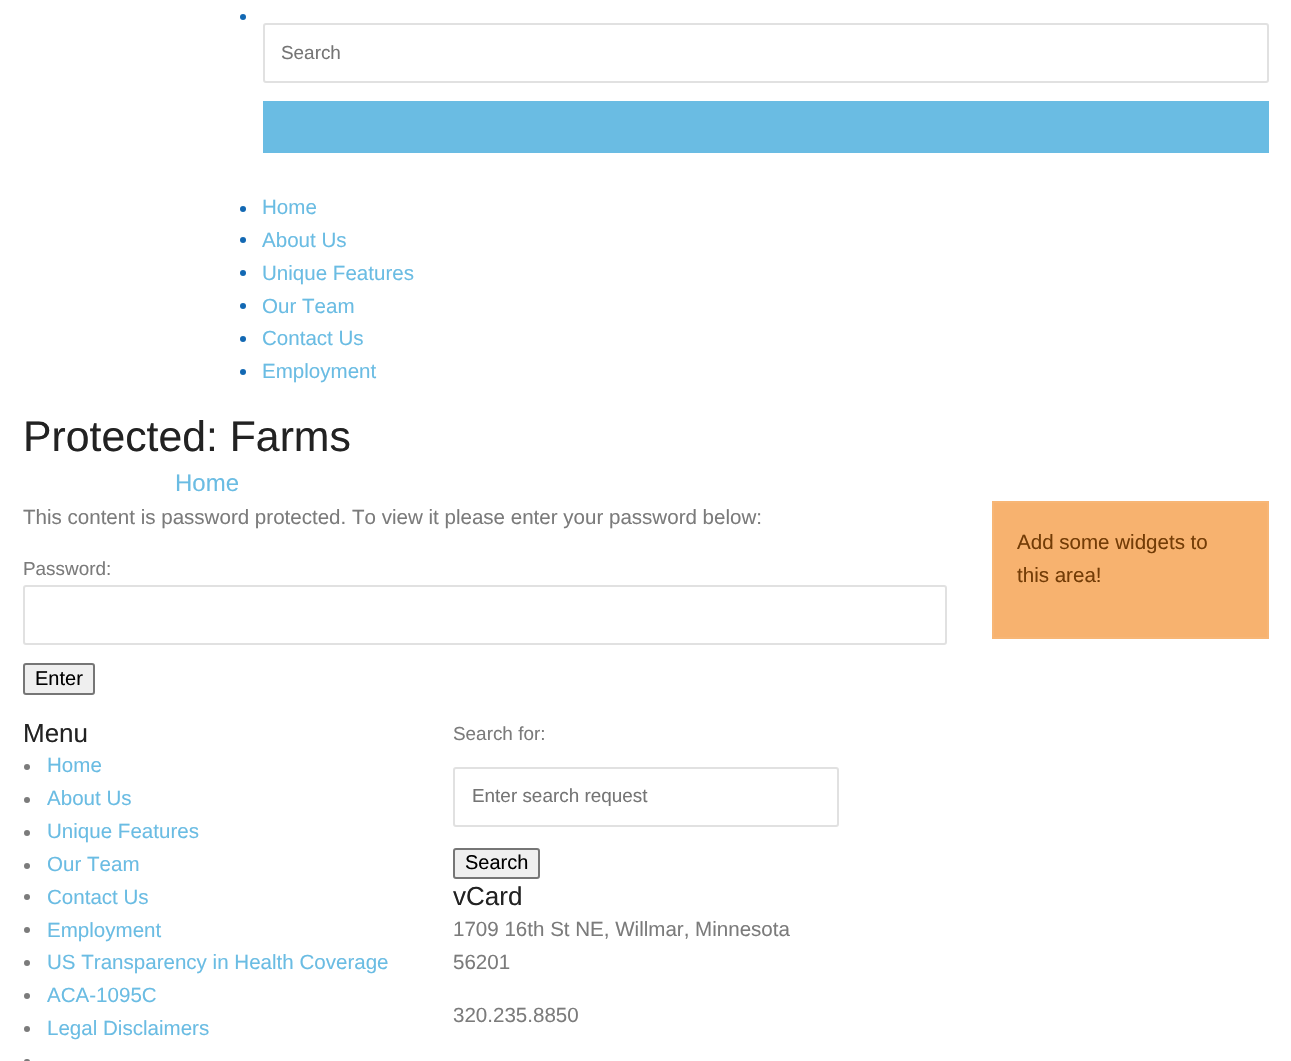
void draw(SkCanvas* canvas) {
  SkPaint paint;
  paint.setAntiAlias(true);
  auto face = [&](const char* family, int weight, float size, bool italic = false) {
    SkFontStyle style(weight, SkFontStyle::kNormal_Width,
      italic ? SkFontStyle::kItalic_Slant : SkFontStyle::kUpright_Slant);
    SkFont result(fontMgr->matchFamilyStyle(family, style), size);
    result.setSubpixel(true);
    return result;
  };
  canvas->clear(0xffffffff);
  paint.setColor(0xff1268b3);
  canvas->drawCircle(243, 17, 3, paint);
  paint.setStroke(true);
  paint.setStrokeWidth(2);
  paint.setColor(0xffe1e1e1);
  canvas->drawRoundRect(SkRect::MakeXYWH(264, 24, 1004, 58), 2, 2, paint);
  paint.setStroke(false);
  paint.setColor(0xff6abce3);
  canvas->drawRect(SkRect::MakeXYWH(263, 101, 1006, 52), paint);
  paint.setColor(0xff1268b3);
  canvas->drawCircle(243, 209, 3, paint);
  canvas->drawCircle(243, 240, 3, paint);
  canvas->drawCircle(243, 273, 3, paint);
  canvas->drawCircle(243, 306, 3, paint);
  canvas->drawCircle(243, 339, 3, paint);
  canvas->drawCircle(243, 372, 3, paint);
  paint.setStroke(true);
  paint.setColor(0xffe1e1e1);
  canvas->drawRoundRect(SkRect::MakeXYWH(24, 586, 922, 58), 2, 2, paint);
  paint.setStroke(false);
  paint.setColor(0xffefefef);
  canvas->drawRoundRect(SkRect::MakeXYWH(24, 664, 70, 30), 2, 2, paint);
  paint.setStroke(true);
  paint.setColor(0xff767676);
  canvas->drawRoundRect(SkRect::MakeXYWH(24, 664, 70, 30), 2, 2, paint);
  paint.setStroke(false);
  paint.setColor(0xfff7b26f);
  canvas->drawRect(SkRect::MakeXYWH(993, 502, 275, 136), paint);
  paint.setStroke(true);
  paint.setColor(0xfff7b676);
  canvas->drawRect(SkRect::MakeXYWH(993, 502, 275, 136), paint);
  paint.setStroke(false);
  paint.setColor(0xff7b7b7b);
  canvas->drawCircle(27, 767, 3, paint);
  canvas->drawCircle(27, 800, 3, paint);
  canvas->drawCircle(27, 833, 3, paint);
  canvas->drawCircle(27, 866, 3, paint);
  canvas->drawCircle(27, 897, 3, paint);
  canvas->drawCircle(27, 930, 3, paint);
  canvas->drawCircle(27, 963, 3, paint);
  canvas->drawCircle(27, 996, 3, paint);
  canvas->drawCircle(27, 1029, 3, paint);
  canvas->drawRoundRect(SkRect::MakeXYWH(24, 1059, 6, 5), 3, 3, paint);
  paint.setStroke(true);
  paint.setColor(0xffe1e1e1);
  canvas->drawRoundRect(SkRect::MakeXYWH(454, 768, 384, 58), 2, 2, paint);
  paint.setStroke(false);
  paint.setColor(0xffefefef);
  canvas->drawRoundRect(SkRect::MakeXYWH(454, 849, 85, 29), 2, 2, paint);
  paint.setStroke(true);
  paint.setColor(0xff767676);
  canvas->drawRoundRect(SkRect::MakeXYWH(454, 849, 85, 29), 2, 2, paint);
  auto f0 = face("Liberation Sans", 400, 18.9f);
  paint.setStroke(false);
  paint.setColor(0xff757575);
  canvas->drawString("Search", 281, 59, f0, paint);
  auto f1 = face("Liberation Sans", 400, 20.55f);
  paint.setColor(0xff6abce3);
  {
    const struct { const char* s; float x, y; } items[] = {
      {"Home", 262, 214},
      {"About Us", 262, 247},
      {"Unique Features", 262, 280},
      {"Our Team", 262, 313},
      {"Contact Us", 262, 345},
      {"Employment", 262, 378},
    };
    for (auto [s, x, y] : items) {
      canvas->drawString(s, x, y, f1, paint);
    }
  }
  auto f2 = face("Liberation Sans", 400, 42.75f);
  paint.setColor(0xff222222);
  canvas->drawString("Protected: Farms", 23, 451, f2, paint);
  auto f3 = face("Liberation Sans", 400, 24);
  paint.setColor(0xff6abce3);
  canvas->drawString("Home", 175, 491, f3, paint);
  paint.setColor(0xff7b7b7b);
  canvas->drawString("This content is password protected. To view it please enter your password below:", 23, 524, f1, paint);
  canvas->drawString("Password:", 23, 575, f0, paint);
  auto f4 = face("Liberation Sans", 400, 20);
  paint.setColor(0xff000000);
  canvas->drawString("Enter", 35, 685, f4, paint);
  paint.setColor(0xff733c06);
  canvas->drawString("Add some widgets to", 1017, 549, f1, paint);
  canvas->drawString("this area!", 1017, 582, f1, paint);
  auto f5 = face("Liberation Sans", 400, 26);
  paint.setColor(0xff222222);
  canvas->drawString("Menu", 23, 742, f5, paint);
  paint.setColor(0xff6abce3);
  {
    const struct { const char* s; float x, y; } items[] = {
      {"Home", 47, 772},
      {"About Us", 47, 805},
      {"Unique Features", 47, 838},
      {"Our Team", 47, 871},
      {"Contact Us", 47, 904},
      {"Employment", 47, 937},
      {"US Transparency in Health Coverage", 47, 969},
      {"ACA-1095C", 47, 1002},
      {"Legal Disclaimers", 47, 1035},
    };
    for (auto [s, x, y] : items) {
      canvas->drawString(s, x, y, f1, paint);
    }
  }
  paint.setColor(0xff7b7b7b);
  canvas->drawString("Search for:", 453, 740, f0, paint);
  paint.setColor(0xff757575);
  canvas->drawString("Enter search request", 472, 802, f0, paint);
  paint.setColor(0xff000000);
  canvas->drawString("Search", 465, 869, f4, paint);
  paint.setColor(0xff222222);
  canvas->drawString("vCard", 453, 905, f5, paint);
  paint.setColor(0xff7b7b7b);
  {
    const struct { const char* s; float x, y; } items[] = {
      {"1709 16th St NE, Willmar, Minnesota", 453, 936},
      {"56201", 453, 969},
      {"320.235.8850", 453, 1022},
    };
    for (auto [s, x, y] : items) {
      canvas->drawString(s, x, y, f1, paint);
    }
  }
}
